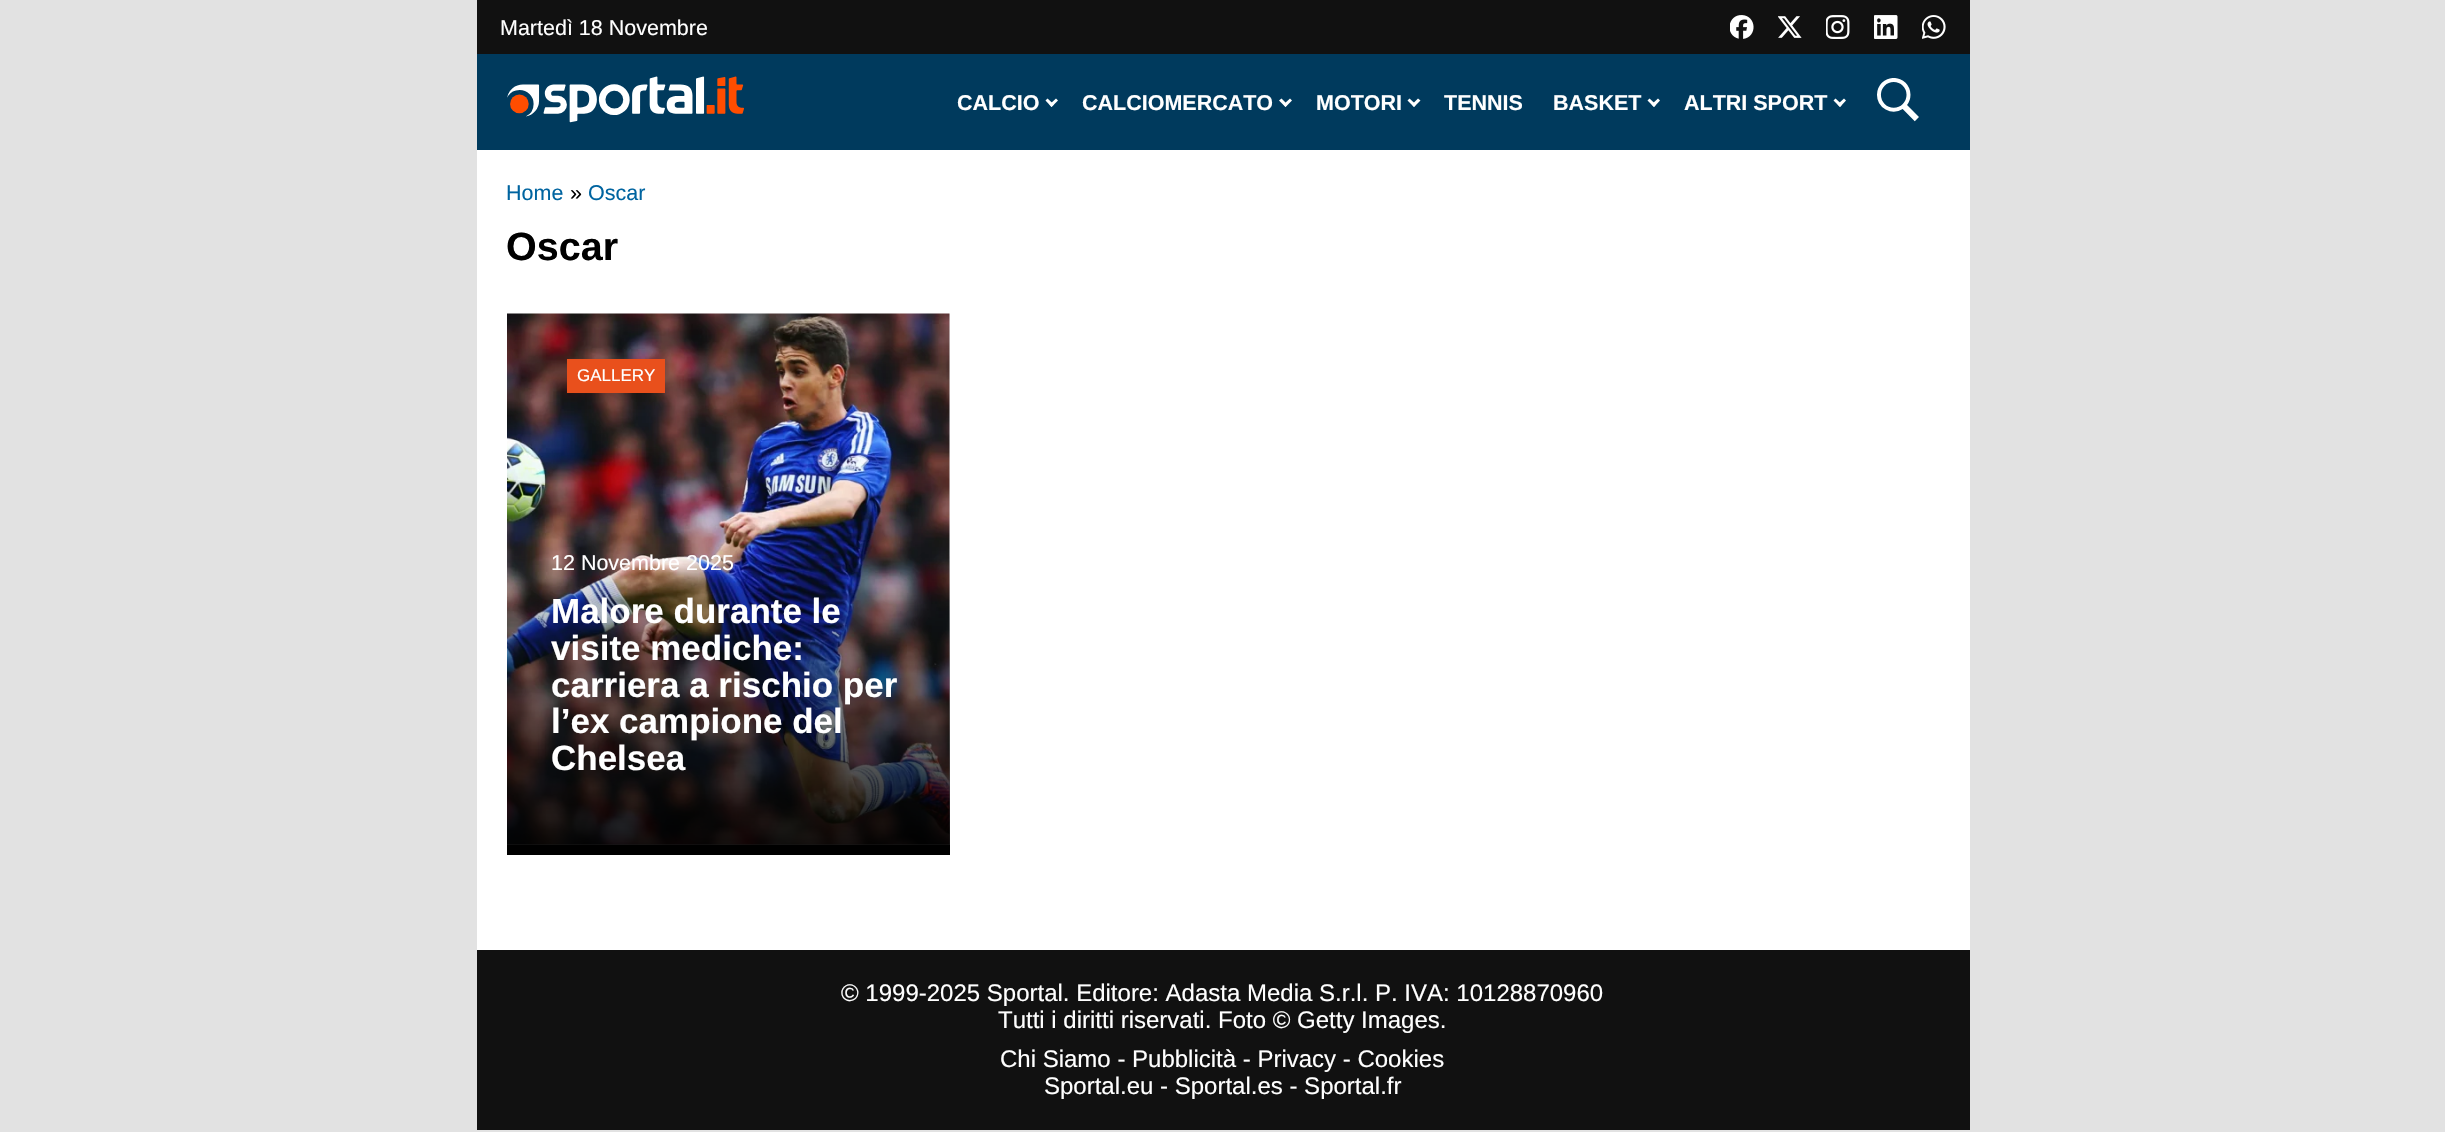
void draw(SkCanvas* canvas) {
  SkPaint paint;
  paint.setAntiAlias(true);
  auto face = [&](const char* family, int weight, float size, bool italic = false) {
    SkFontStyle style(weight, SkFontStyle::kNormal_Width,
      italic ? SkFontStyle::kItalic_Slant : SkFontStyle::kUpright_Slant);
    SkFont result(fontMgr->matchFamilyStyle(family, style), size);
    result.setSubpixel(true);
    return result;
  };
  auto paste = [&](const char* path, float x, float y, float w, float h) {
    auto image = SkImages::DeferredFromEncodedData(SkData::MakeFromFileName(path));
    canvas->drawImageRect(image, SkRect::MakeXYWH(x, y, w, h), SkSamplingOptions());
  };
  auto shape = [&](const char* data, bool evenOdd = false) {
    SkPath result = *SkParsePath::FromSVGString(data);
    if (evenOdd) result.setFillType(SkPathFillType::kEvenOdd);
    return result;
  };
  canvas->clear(0xffe2e2e2);
  paint.setColor(0xff111111);
  canvas->drawRect(SkRect::MakeXYWH(477, 0, 1493, 54), paint);
  paste("img/1.png", 1730, 15, 24, 24);
  paste("img/2.png", 1778, 16, 24, 22);
  paste("img/3.png", 1826, 15, 24, 24);
  paste("img/4.png", 1874, 15, 24, 24);
  paste("img/5.png", 1922, 15, 24, 24);
  paint.setColor(0xff003a5d);
  canvas->drawRect(SkRect::MakeXYWH(477, 54, 1493, 96), paint);
  paste("img/6.png", 507, 76, 237, 47);
  paint.setColor(0xffffffff);
  canvas->drawPath(shape("M1058 100.5L1051.5 107L1049.5 104.5L1056 98.5Z"), paint);
  canvas->drawPath(shape("M1054 104.5L1051.5 107L1045.5 100.5L1047.5 98.5Z"), paint);
  canvas->drawPath(shape("M1292 100.5L1285.5 107L1283.5 104.5L1290 98.5Z"), paint);
  canvas->drawPath(shape("M1287.5 104.5L1285.5 107L1279 100.5L1281.5 98.5Z"), paint);
  canvas->drawPath(shape("M1420.5 100.5L1414 107L1412 104.5L1418 98.5Z"), paint);
  canvas->drawPath(shape("M1416 104.5L1414 107L1407.5 100.5L1409.5 98.5Z"), paint);
  canvas->drawPath(shape("M1660 100.5L1654 107L1651.5 104.5L1658 98.5Z"), paint);
  canvas->drawPath(shape("M1656 104.5L1654 107L1647.5 100.5L1649.5 98.5Z"), paint);
  canvas->drawPath(shape("M1846 100.5L1840 107L1837.5 104.5L1844 98.5Z"), paint);
  canvas->drawPath(shape("M1842 104.5L1840 107L1833.5 100.5L1835.5 98.5Z"), paint);
  paste("img/7.png", 1877, 78, 42, 44);
  {
    const struct { float x, y, w, h; SkColor color; } items[] = {
      {477, 150, 1493, 800, 0xffffffff},
      {507, 845, 443, 10, 0xff000000},
      {507, 314, 443, 531, 0xfff6f7f8},
    };
    for (auto [x, y, w, h, color] : items) {
      paint.setColor(color);
      canvas->drawRect(SkRect::MakeXYWH(x, y, w, h), paint);
    }
  }
  paste("img/8.png", 507, 313, 443, 532);
  paint.setColor(0xffe9501c);
  canvas->drawRect(SkRect::MakeXYWH(567, 359, 98, 34), paint);
  {
    const SkColor colors[] = {0x00000000, 0xe6000000};
    const float stops[] = {0, 1};
    const SkPoint ends[] = {{728, 549}, {728, 845}};
    paint.setShader(SkGradientShader::MakeLinear(ends, colors, stops, 2, SkTileMode::kClamp));
    paint.setAlpha(255);
  }
  canvas->drawRect(SkRect::MakeXYWH(507, 556, 443, 289), paint);
  paint.setShader(nullptr);
  paint.setColor(0xff111111);
  canvas->drawRect(SkRect::MakeXYWH(477, 950, 1493, 180), paint);
  auto f0 = face("Liberation Sans", 400, 21.5f);
  paint.setColor(0xffffffff);
  canvas->drawString("Martedì 18 Novembre", 500, 35, f0, paint);
  auto f1 = face("Liberation Sans", 700, 21.5f);
  {
    const struct { const char* s; float x, y; } items[] = {
      {"CALCIO", 957, 110},
      {"CALCIOMERCATO", 1082, 110},
      {"MOTORI", 1316, 110},
      {"TENNIS", 1444, 110},
      {"BASKET", 1553, 110},
      {"ALTRI SPORT", 1684, 110},
    };
    for (auto [s, x, y] : items) {
      canvas->drawString(s, x, y, f1, paint);
    }
  }
  paint.setColor(0xff0064a0);
  canvas->drawString("Home", 506, 200, f0, paint);
  paint.setColor(0xff000000);
  canvas->drawString("»", 570, 200, f0, paint);
  paint.setColor(0xff0064a0);
  canvas->drawString("Oscar", 588, 200, f0, paint);
  auto f2 = face("Liberation Sans", 700, 39.5f);
  paint.setColor(0xff000000);
  canvas->drawString("Oscar", 506, 260, f2, paint);
  auto f3 = face("Liberation Sans", 400, 17);
  paint.setColor(0xffffffff);
  canvas->drawString("GALLERY", 577, 381, f3, paint);
  canvas->drawString("12 Novembre 2025", 551, 570, f0, paint);
  auto f4 = face("Liberation Sans", 700, 35);
  {
    const struct { const char* s; float x, y; } items[] = {
      {"Malore durante le", 551, 623},
      {"visite mediche:", 551, 660},
      {"carriera a rischio per", 551, 697},
      {"l’ex campione del", 551, 733},
      {"Chelsea", 551, 770},
    };
    for (auto [s, x, y] : items) {
      canvas->drawString(s, x, y, f4, paint);
    }
  }
  auto f5 = face("Liberation Sans", 400, 24);
  {
    const struct { const char* s; float x, y; } items[] = {
      {"© 1999-2025 Sportal. Editore: Adasta Media S.r.l. P. IVA: 10128870960", 841, 1001},
      {"Tutti i diritti riservati. Foto © Getty Images.", 998, 1028},
      {"Chi Siamo - Pubblicità - Privacy - Cookies", 1000, 1067},
      {"Sportal.eu - Sportal.es - Sportal.fr", 1044, 1094},
    };
    for (auto [s, x, y] : items) {
      canvas->drawString(s, x, y, f5, paint);
    }
  }
}
